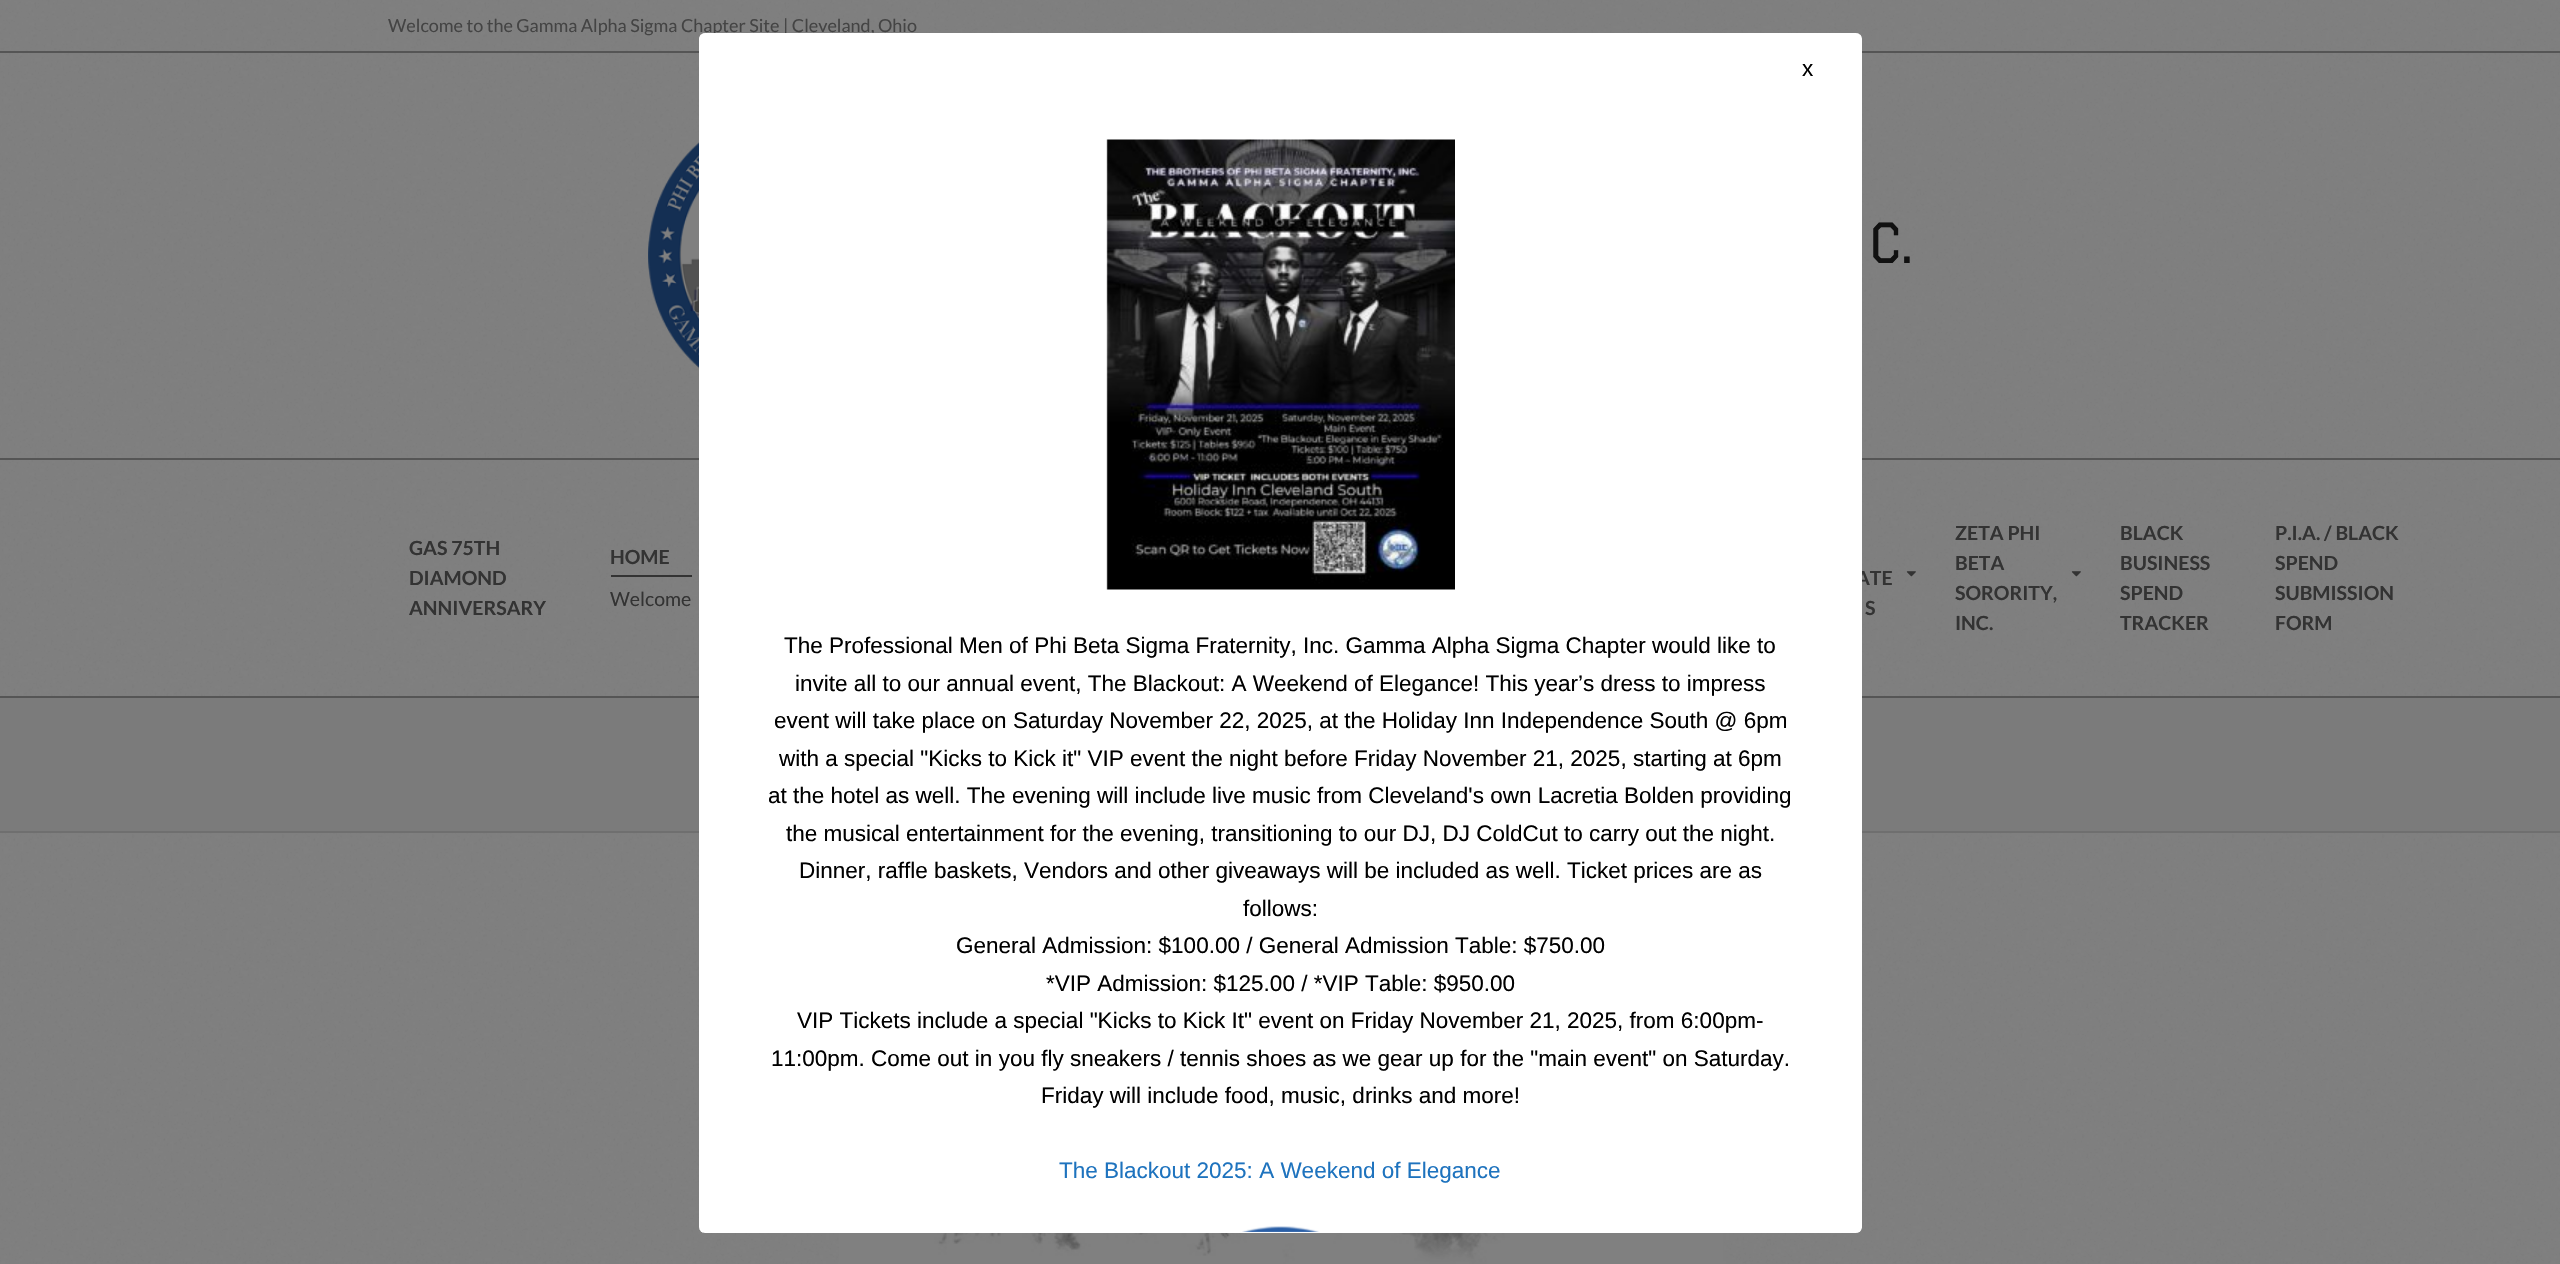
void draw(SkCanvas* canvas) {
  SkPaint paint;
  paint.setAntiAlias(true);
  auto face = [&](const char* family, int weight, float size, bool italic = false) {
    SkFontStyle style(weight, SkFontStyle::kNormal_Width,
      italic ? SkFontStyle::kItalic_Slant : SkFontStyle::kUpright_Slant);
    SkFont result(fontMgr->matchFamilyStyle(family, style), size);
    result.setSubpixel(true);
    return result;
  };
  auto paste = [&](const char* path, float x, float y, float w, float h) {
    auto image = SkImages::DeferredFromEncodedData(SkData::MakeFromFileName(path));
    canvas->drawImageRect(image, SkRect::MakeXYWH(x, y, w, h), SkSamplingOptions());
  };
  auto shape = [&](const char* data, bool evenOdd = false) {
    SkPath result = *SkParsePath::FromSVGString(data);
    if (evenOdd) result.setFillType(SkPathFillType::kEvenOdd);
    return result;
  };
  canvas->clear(0xff808080);
  paste("img/1.png", 0, 0, 2560, 1264);
  paint.setColor(0xff555555);
  canvas->drawRect(SkRect::MakeXYWH(0, 51, 2560, 2), paint);
  canvas->drawRect(SkRect::MakeXYWH(0, 458, 2560, 2), paint);
  paste("img/2.png", 648, 142, 51, 227);
  canvas->drawRect(SkRect::MakeXYWH(0, 696, 2560, 2), paint);
  paint.setColor(0xff333333);
  canvas->drawRect(SkRect::MakeXYWH(611, 575, 81, 2), paint);
  paste("img/3.png", 1906, 571, 10, 6);
  paste("img/4.png", 2071, 571, 10, 6);
  paint.setColor(0xff7b7b7b);
  canvas->drawRect(SkRect::MakeXYWH(0, 698, 2560, 133), paint);
  paint.setColor(0xff6f6f6f);
  canvas->drawRect(SkRect::MakeXYWH(0, 831, 2560, 2), paint);
  paste("img/5.png", 839, 1233, 884, 31);
  auto f0 = face("Lato", 400, 18);
  paint.setColor(0xff444444);
  canvas->drawString("Welcome to the Gamma Alpha Sigma Chapter Site | Cleveland, Ohio", 388, 32, f0, paint);
  auto f1 = face("Graduate", 400, 54);
  paint.setColor(0xff111111);
  canvas->drawString("C.", 1869, 263, f1, paint);
  auto f2 = face("Lato", 700, 19.5f);
  paint.setColor(0xff333333);
  {
    const struct { const char* s; float x, y; } items[] = {
      {"GAS 75TH", 409, 555},
      {"DIAMOND", 409, 585},
      {"ANNIVERSARY", 409, 615},
      {"HOME", 610, 564},
    };
    for (auto [s, x, y] : items) {
      canvas->drawString(s, x, y, f2, paint);
    }
  }
  auto f3 = face("Lato", 400, 19.5f);
  canvas->drawString("Welcome", 610, 606, f3, paint);
  {
    const struct { const char* s; float x, y; } items[] = {
      {"ATE", 1856, 585},
      {"S", 1865, 615},
      {"ZETA PHI", 1955, 540},
      {"BETA", 1955, 570},
      {"SORORITY,", 1955, 600},
      {"INC.", 1955, 630},
      {"BLACK", 2120, 540},
      {"BUSINESS", 2120, 570},
      {"SPEND", 2120, 600},
      {"TRACKER", 2120, 630},
      {"P.I.A. / BLACK", 2275, 540},
      {"SPEND", 2275, 570},
      {"SUBMISSION", 2275, 600},
      {"FORM", 2275, 630},
    };
    for (auto [s, x, y] : items) {
      canvas->drawString(s, x, y, f2, paint);
    }
  }
  paint.setColor(0xffffffff);
  canvas->drawRoundRect(SkRect::MakeXYWH(699, 33, 1163, 1200), 6, 6, paint);
  paint.setStroke(true);
  paint.setStrokeWidth(1.5f);
  paint.setPathEffect(SkDashPathEffect::Make({{1.5f, 1.5f}}, 0));
  canvas->drawPath(shape("M705 34H1855.5C1858.5 34 1861 36 1861 39V1227C1861 1230 1858.5 1232 1855.5 1232H705C702 1232 700 1230 700 1227V39C700 36 702 34 705 34Z"), paint);
  paint.setPathEffect(nullptr);
  auto f4 = face("Liberation Sans", 400, 22.5f);
  paint.setStroke(false);
  paint.setColor(0xff000000);
  canvas->drawString("x", 1802, 76, f4, paint);
  paste("img/6.png", 1106, 139, 349, 451);
  {
    const struct { const char* s; float x, y; } items[] = {
      {"The Professional Men of Phi Beta Sigma Fraternity, Inc. Gamma Alpha Sigma Chapter would like to", 784, 653},
      {"invite all to our annual event, The Blackout: A Weekend of Elegance! This year’s dress to impress", 795, 691},
      {"event will take place on Saturday November 22, 2025, at the Holiday Inn Independence South @ 6pm", 774, 728},
      {"with a special \"Kicks to Kick it\" VIP event the night before Friday November 21, 2025, starting at 6pm", 779, 766},
      {"at the hotel as well. The evening will include live music from Cleveland's own Lacretia Bolden providing", 768, 803},
      {"the musical entertainment for the evening, transitioning to our DJ, DJ ColdCut to carry out the night.", 786, 841},
      {"Dinner, raffle baskets, Vendors and other giveaways will be included as well. Ticket prices are as", 799, 878},
      {"follows:", 1243, 916},
      {"General Admission: $100.00 / General Admission Table: $750.00", 956, 953},
      {"*VIP Admission: $125.00 / *VIP Table: $950.00", 1046, 991},
      {"VIP Tickets include a special \"Kicks to Kick It\" event on Friday November 21, 2025, from 6:00pm-", 797, 1028},
      {"11:00pm. Come out in you fly sneakers / tennis shoes as we gear up for the \"main event\" on Saturday.", 771, 1066},
      {"Friday will include food, music, drinks and more!", 1041, 1103},
    };
    for (auto [s, x, y] : items) {
      canvas->drawString(s, x, y, f4, paint);
    }
  }
  paint.setColor(0xff1e73be);
  canvas->drawString("The Blackout 2025: A Weekend of Elegance", 1059, 1178, f4, paint);
  paste("img/7.png", 1242, 1226, 77, 6);
}
